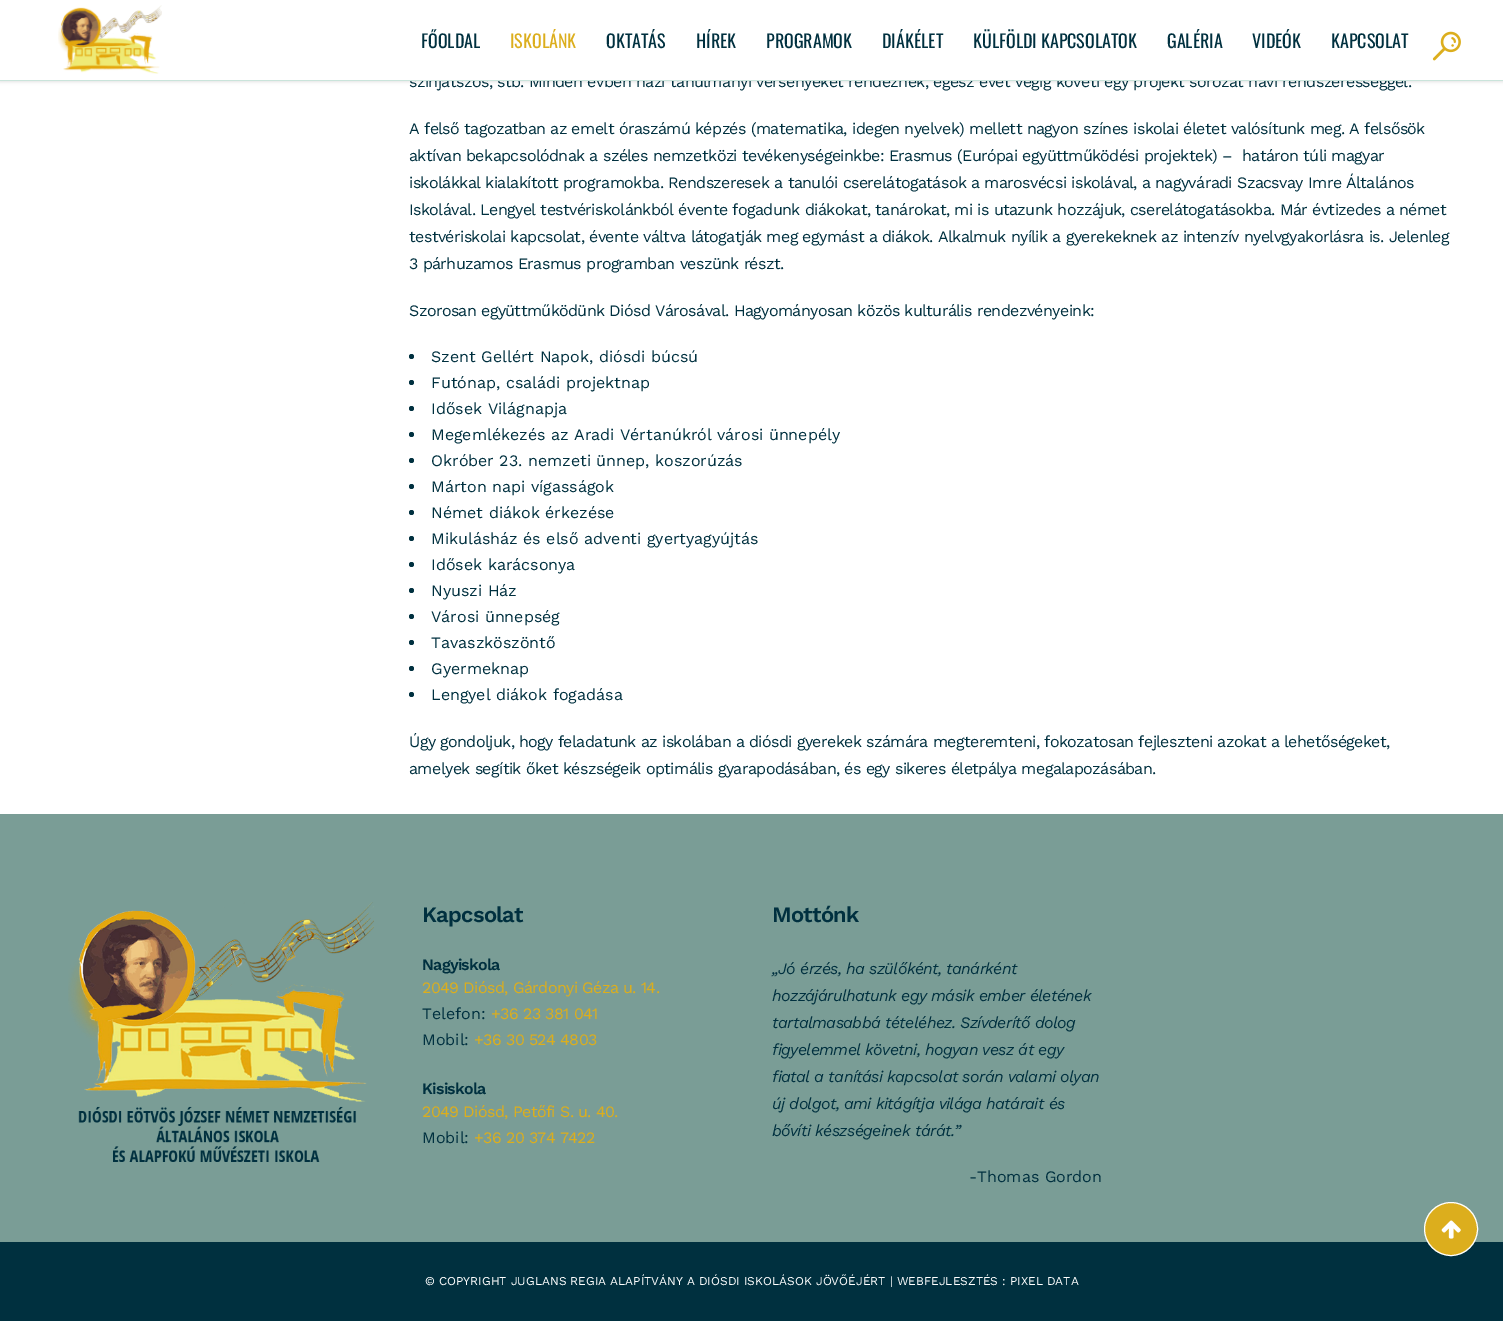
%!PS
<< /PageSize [1503 1321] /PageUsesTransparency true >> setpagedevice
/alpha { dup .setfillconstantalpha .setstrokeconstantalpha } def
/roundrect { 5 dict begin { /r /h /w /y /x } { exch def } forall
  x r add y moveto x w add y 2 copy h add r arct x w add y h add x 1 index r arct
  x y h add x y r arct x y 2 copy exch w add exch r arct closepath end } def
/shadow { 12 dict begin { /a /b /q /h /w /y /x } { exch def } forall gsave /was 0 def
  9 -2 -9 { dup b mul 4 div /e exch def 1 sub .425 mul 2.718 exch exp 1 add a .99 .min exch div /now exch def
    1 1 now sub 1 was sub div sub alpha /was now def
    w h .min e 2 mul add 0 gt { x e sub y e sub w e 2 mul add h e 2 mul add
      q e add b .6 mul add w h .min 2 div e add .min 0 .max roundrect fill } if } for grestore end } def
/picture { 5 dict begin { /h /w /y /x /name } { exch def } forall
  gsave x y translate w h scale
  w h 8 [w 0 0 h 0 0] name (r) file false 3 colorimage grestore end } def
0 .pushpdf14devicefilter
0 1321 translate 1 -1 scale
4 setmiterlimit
1 setgray
0 0 1503 1321 rectfill
0 setgray
0 1 1503 81 0 1.5 0.11 shadow
/WorkSans-Regular [16 0 0 -16 0 0] selectfont
0 0.188 0.247 setrgbcolor
409 87 moveto -0.6 0 (színjátszós, stb. Minden évben házi tanulmányi versenyeket rendeznek, egész évet végig követi egy projekt sorozat havi rendszerességgel.) ashow
1 setgray
0 0 1503 80 rectfill
0.792 0.894 0.859 setrgbcolor
0 80 1503 1 rectfill
(img1.rgb) 58 5 104 69 picture
/Oswald-Regular [18 0 0 -18 0 0] selectfont
0 0.188 0.247 setrgbcolor
421 48 moveto (FŐOLDAL) show
0.863 0.682 0.114 setrgbcolor
510 48 moveto (ISKOLÁNK) show
0 0.188 0.247 setrgbcolor
606 48 moveto (OKTATÁS) show
696 48 moveto (HÍREK) show
766 48 moveto (PROGRAMOK) show
882 48 moveto (DIÁKÉLET) show
973 48 moveto (KÜLFÖLDI KAPCSOLATOK) show
1167 48 moveto (GALÉRIA) show
1252 48 moveto (VIDEÓK) show
1331 48 moveto (KAPCSOLAT) show
(img2.rgb) 1432 31 29 30 picture
/WorkSans-Regular [16 0 0 -16 0 0] selectfont
409 134 moveto -0.6 0 (A felső tagozatban az emelt óraszámú képzés \(matematika, idegen nyelvek\) mellett nagyon színes iskolai életet valósítunk meg. A felsősök) ashow
409 161 moveto -0.6 0 (aktívan bekapcsolódnak a széles nemzetközi tevékenységeinkbe: Erasmus \(Európai együttműködési projektek\) –  határon túli magyar) ashow
409 188 moveto -0.6 0 (iskolákkal kialakított programokba. Rendszeresek a tanulói cserelátogatások a marosvécsi iskolával, a nagyváradi Szacsvay Imre Általános) ashow
409 215 moveto -0.6 0 (Iskolával. Lengyel testvériskolánkból évente fogadunk diákokat, tanárokat, mi is utazunk hozzájuk, cserelátogatásokba. Már évtizedes a német) ashow
409 242 moveto -0.6 0 (testvériskolai kapcsolat, évente váltva látogatják meg egymást a diákok. Alkalmuk nyílik a gyerekeknek az intenzív nyelvgyakorlásra is. Jelenleg) ashow
409 269 moveto -0.6 0 (3 párhuzamos Erasmus programban veszünk részt.) ashow
409 316 moveto -0.6 0 (Szorosan együttműködünk Diósd Városával. Hagyományosan közös kulturális rendezvényeink:) ashow
newpath 411.5 356.5 2.5 0 360 arc closepath fill
431 362 moveto (Szent Gellért Napok, diósdi búcsú) show
newpath 411.5 382.5 2.5 0 360 arc closepath fill
431 388 moveto (Futónap, családi projektnap) show
newpath 411.5 408.5 2.5 0 360 arc closepath fill
431 414 moveto (Idősek Világnapja) show
newpath 411.5 434.5 2.5 0 360 arc closepath fill
431 440 moveto (Megemlékezés az Aradi Vértanúkról városi ünnepély) show
newpath 411.5 460.5 2.5 0 360 arc closepath fill
431 466 moveto (Okróber 23. nemzeti ünnep, koszorúzás) show
newpath 411.5 486.5 2.5 0 360 arc closepath fill
431 492 moveto (Márton napi vígasságok) show
newpath 411.5 512.5 2.5 0 360 arc closepath fill
431 518 moveto (Német diákok érkezése) show
newpath 411.5 538.5 2.5 0 360 arc closepath fill
431 544 moveto (Mikulásház és első adventi gyertyagyújtás) show
newpath 411.5 564.5 2.5 0 360 arc closepath fill
431 570 moveto (Idősek karácsonya) show
newpath 411.5 590.5 2.5 0 360 arc closepath fill
431 596 moveto (Nyuszi Ház) show
newpath 411.5 616.5 2.5 0 360 arc closepath fill
431 622 moveto (Városi ünnepség) show
newpath 411.5 642.5 2.5 0 360 arc closepath fill
431 648 moveto (Tavaszköszöntő) show
newpath 411.5 668.5 2.5 0 360 arc closepath fill
431 674 moveto (Gyermeknap) show
newpath 411.5 694.5 2.5 0 360 arc closepath fill
431 700 moveto (Lengyel diákok fogadása) show
409 747 moveto -0.6 0 (Úgy gondoljuk, hogy feladatunk az iskolában a diósdi gyerekek számára megteremteni, fokozatosan fejleszteni azokat a lehetőségeket,) ashow
409 774 moveto -0.6 0 (amelyek segítik őket készségeik optimális gyarapodásában, és egy sikeres életpálya megalapozásában.) ashow
0.478 0.616 0.588 setrgbcolor
0 814 1503 428 rectfill
(img3.rgb) 68 902 306 260 picture
/WorkSans-SemiBold [22 0 0 -22 0 0] selectfont
0 0.188 0.247 setrgbcolor
422 922 moveto -0.75 0 (Kapcsolat) ashow
/WorkSans-SemiBold [16 0 0 -16 0 0] selectfont
422 970 moveto -0.75 0 (Nagyiskola) ashow
/WorkSans-Regular [16 0 0 -16 0 0] selectfont
0.863 0.682 0.114 setrgbcolor
422 993 moveto -0.6 0 (2049 Diósd, Gárdonyi Géza u. 14.) ashow
0 0.188 0.247 setrgbcolor
422 1019 moveto (Telefon:) show
0.863 0.682 0.114 setrgbcolor
491 1019 moveto -0.6 0 (+36 23 381 041) ashow
0 0.188 0.247 setrgbcolor
422 1045 moveto (Mobil:) show
0.863 0.682 0.114 setrgbcolor
474 1045 moveto -0.6 0 (+36 30 524 4803) ashow
/WorkSans-SemiBold [16 0 0 -16 0 0] selectfont
0 0.188 0.247 setrgbcolor
422 1094 moveto -0.75 0 (Kisiskola) ashow
/WorkSans-Regular [16 0 0 -16 0 0] selectfont
0.863 0.682 0.114 setrgbcolor
422 1117 moveto -0.6 0 (2049 Diósd, Petőfi S. u. 40.) ashow
0 0.188 0.247 setrgbcolor
422 1143 moveto (Mobil:) show
0.863 0.682 0.114 setrgbcolor
474 1143 moveto -0.6 0 (+36 20 374 7422) ashow
/WorkSans-SemiBold [22 0 0 -22 0 0] selectfont
0 0.188 0.247 setrgbcolor
772 922 moveto -0.75 0 (Mottónk) ashow
/WorkSans-Italic [16 0 0 -16 0 0] selectfont
772 974 moveto -0.6 0 („Jó érzés, ha szülőként, tanárként) ashow
772 1001 moveto -0.6 0 (hozzájárulhatunk egy másik ember életének) ashow
772 1028 moveto -0.6 0 (tartalmasabbá tételéhez. Szívderítő dolog) ashow
772 1055 moveto -0.6 0 (figyelemmel követni, hogyan vesz át egy) ashow
772 1082 moveto -0.6 0 (fiatal a tanítási kapcsolat során valami olyan) ashow
772 1109 moveto -0.6 0 (új dolgot, ami kitágítja világa határait és) ashow
772 1136 moveto -0.6 0 (bővíti készségeinek tárát.”) ashow
/WorkSans-Regular [16 0 0 -16 0 0] selectfont
969 1182 moveto (-Thomas Gordon) show
0 1242 1503 79 rectfill
/WorkSans-Regular [12 0 0 -12 0 0] selectfont
1 setgray
425 1285 moveto (© COPYRIGHT JUGLANS REGIA ALAPÍTVÁNY A DIÓSDI ISKOLÁSOK JÖVŐÉJÉRT | WEBFEJLESZTÉS : PIXEL DATA) show
0.863 0.682 0.114 setrgbcolor
newpath 1451 1229 26.5 0 360 arc closepath gsave fill grestore
1 setgray
stroke
(img4.rgb) 1441 1220 20 19 picture
.poppdf14devicefilter showpage
